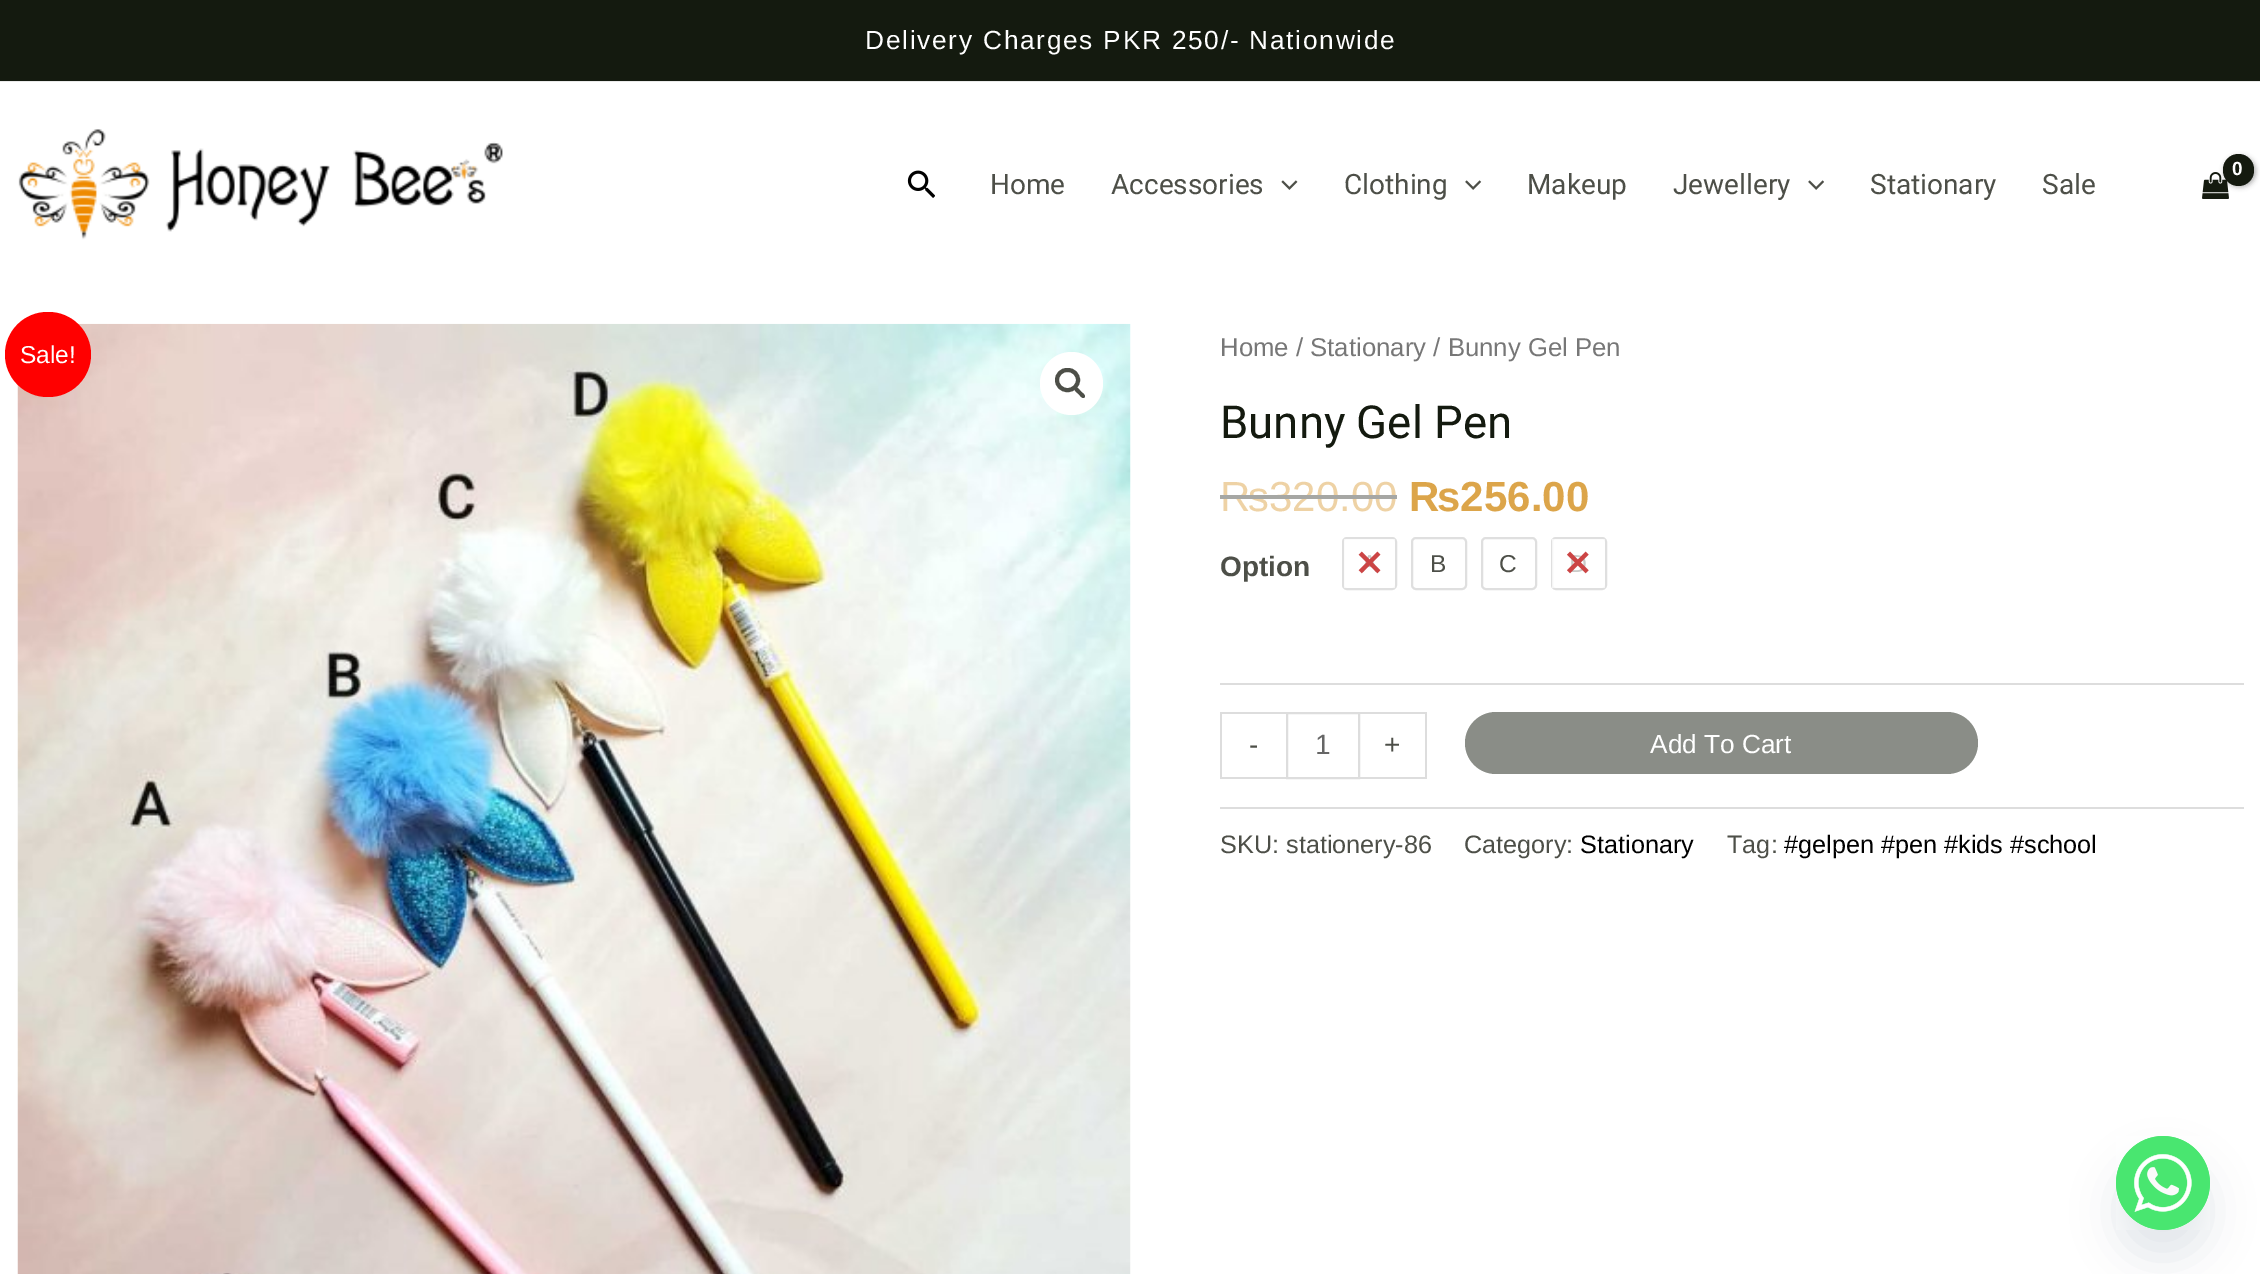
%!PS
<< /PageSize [2260 1274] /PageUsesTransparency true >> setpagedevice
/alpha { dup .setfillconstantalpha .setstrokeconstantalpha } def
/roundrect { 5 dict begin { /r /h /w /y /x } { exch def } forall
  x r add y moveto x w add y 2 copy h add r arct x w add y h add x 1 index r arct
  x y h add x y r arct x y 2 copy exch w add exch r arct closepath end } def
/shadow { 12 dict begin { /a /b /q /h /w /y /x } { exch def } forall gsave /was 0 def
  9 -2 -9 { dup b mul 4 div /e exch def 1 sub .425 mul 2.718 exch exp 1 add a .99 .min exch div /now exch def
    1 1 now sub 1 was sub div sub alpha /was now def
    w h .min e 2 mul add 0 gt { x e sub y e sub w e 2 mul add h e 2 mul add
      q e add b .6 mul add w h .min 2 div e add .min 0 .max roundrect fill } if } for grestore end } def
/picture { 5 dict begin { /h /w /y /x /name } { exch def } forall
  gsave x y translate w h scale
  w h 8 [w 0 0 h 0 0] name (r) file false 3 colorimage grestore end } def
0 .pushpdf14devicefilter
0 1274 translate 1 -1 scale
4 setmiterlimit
1 setgray
0 0 2260 1274 rectfill
0.078 0.102 0.059 setrgbcolor
0 0 2260 81 rectfill
0.918 setgray
0 81 2260 1 rectfill
/LiberationSans-Regular [26.25 0 0 -26.25 0 0] selectfont
1 setgray
865 49 moveto 1.75 0 (Delivery Charges PKR 250/- Nationwide) ashow
(img1.rgb) 18 129 485 111 picture
(img2.rgb) 2202 172 27 27 picture
0 setgray
2224 156 32 31 15.5 2.5 0.3 shadow
0.078 0.102 0.059 setrgbcolor
2223 154 31 32 15.5 roundrect fill
/LiberationSans-Bold [19 0 0 -19 0 0] selectfont
1 setgray
2232 175 moveto -1 0 (0) ashow
(img3.rgb) 907 170 28 28 picture
/Roboto-Regular [28 0 0 -28 0 0] selectfont
0.302 0.31 0.282 setrgbcolor
990 194 moveto (Home) show
1111 194 moveto (Accessories) show
(img4.rgb) 1281 180 17 10 picture
1344 194 moveto (Clothing) show
(img5.rgb) 1465 180 17 10 picture
1527 194 moveto (Makeup) show
1673 194 moveto (Jewellery) show
(img6.rgb) 1808 180 16 10 picture
1870 194 moveto (Stationary) show
2042 194 moveto (Sale) show
(img7.rgb) 17 323 1114 951 picture
1 setgray
newpath 1071.5 383.5 31.5 0 360 arc closepath fill
0.302 0.31 0.282 setrgbcolor
4 setlinewidth
1057 370 21 20 10 roundrect stroke
newpath 1075 388 moveto 1077 386 1080 390.5 1081 391.5 curveto 1082 392.5 1086.5 395.5 1084.5 397.5 curveto 1082.5 399.5 1079.5 395 1078.5 394 curveto 1077.5 393 1073 390 1075 388 curveto closepath fill
/LiberationSans-Regular [25.75 0 0 -25.75 0 0] selectfont
0.467 setgray
1220 356 moveto (Home / Stationary / Bunny Gel Pen) show
/Roboto-Regular [45.5 0 0 -45.5 0 0] selectfont
0.078 0.102 0.059 setrgbcolor
1220 438 moveto (Bunny Gel Pen) show
/LiberationSans-Regular [42 0 0 -42 0 0] selectfont
0.933 0.824 0.647 setrgbcolor
1220 511 moveto (₨320.00) show
0.651 0.655 0.643 setrgbcolor
1220 495 177 4 rectfill
/LiberationSans-Bold [42 0 0 -42 0 0] selectfont
0.863 0.647 0.29 setrgbcolor
1409 511 moveto (₨256.00) show
0.867 setgray
1220 683 1024 2 rectfill
/LiberationSans-Bold [28 0 0 -28 0 0] selectfont
0.302 0.31 0.282 setrgbcolor
1220 576 moveto (Option) show
0.875 setgray
2 setlinewidth
1343 538 53 51 4 roundrect stroke
0.7 alpha
1 setgray
1344 539 51 49 rectfill
1 alpha
(img8.rgb) 1358 551 23 23 picture
0.875 setgray
1412 538 54 51 4 roundrect stroke
/LiberationSans-Regular [24.5 0 0 -24.5 0 0] selectfont
0.302 0.31 0.282 setrgbcolor
1430 572 moveto (B) show
0.875 setgray
1482 538 54 51 4 roundrect stroke
0.302 0.31 0.282 setrgbcolor
1499 572 moveto (C) show
0.875 setgray
1552 538 54 51 4 roundrect stroke
0.7 alpha
1 setgray
1552 539 53 49 rectfill
1 alpha
(img9.rgb) 1567 551 22 23 picture
0.867 setgray
1220 712 66 2 rectfill
1220 777 66 2 rectfill
1220 712 2 67 rectfill
/LiberationSans-Regular [28 0 0 -28 0 0] selectfont
0.302 0.31 0.282 setrgbcolor
1249 754 moveto (-) show
0.867 setgray
1287 713 72 65 rectstroke
0.4 setgray
1315 754 moveto (1) show
0.867 setgray
1360 712 66 2 rectfill
1425 712 2 67 rectfill
1360 777 66 2 rectfill
0.302 0.31 0.282 setrgbcolor
1384 754 moveto (+) show
0.541 0.553 0.529 setrgbcolor
1465 712 513 62 31 roundrect fill
/LiberationSans-Regular [26.25 0 0 -26.25 0 0] selectfont
1 setgray
1650 753 moveto (Add To Cart) show
0.867 setgray
1220 807 1024 2 rectfill
/LiberationSans-Regular [25.25 0 0 -25.25 0 0] selectfont
0.302 0.31 0.282 setrgbcolor
1220 853 moveto (SKU: stationery-86) show
1464 853 moveto (Category:) show
0 setgray
1580 853 moveto (Stationary) show
0.302 0.31 0.282 setrgbcolor
1727 853 moveto (Tag:) show
0 setgray
1784 853 moveto (#gelpen #pen #kids #school) show
1 0 0 setrgbcolor
5 312 86 85 42.5 roundrect fill
/LiberationSans-Regular [24.5 0 0 -24.5 0 0] selectfont
1 setgray
20 363 moveto (Sale!) show
0.286 0.408 0.494 setrgbcolor
2116 1164 94 94 47 21 0.16 shadow
(img10.rgb) 2116 1136 94 94 picture
.poppdf14devicefilter showpage
